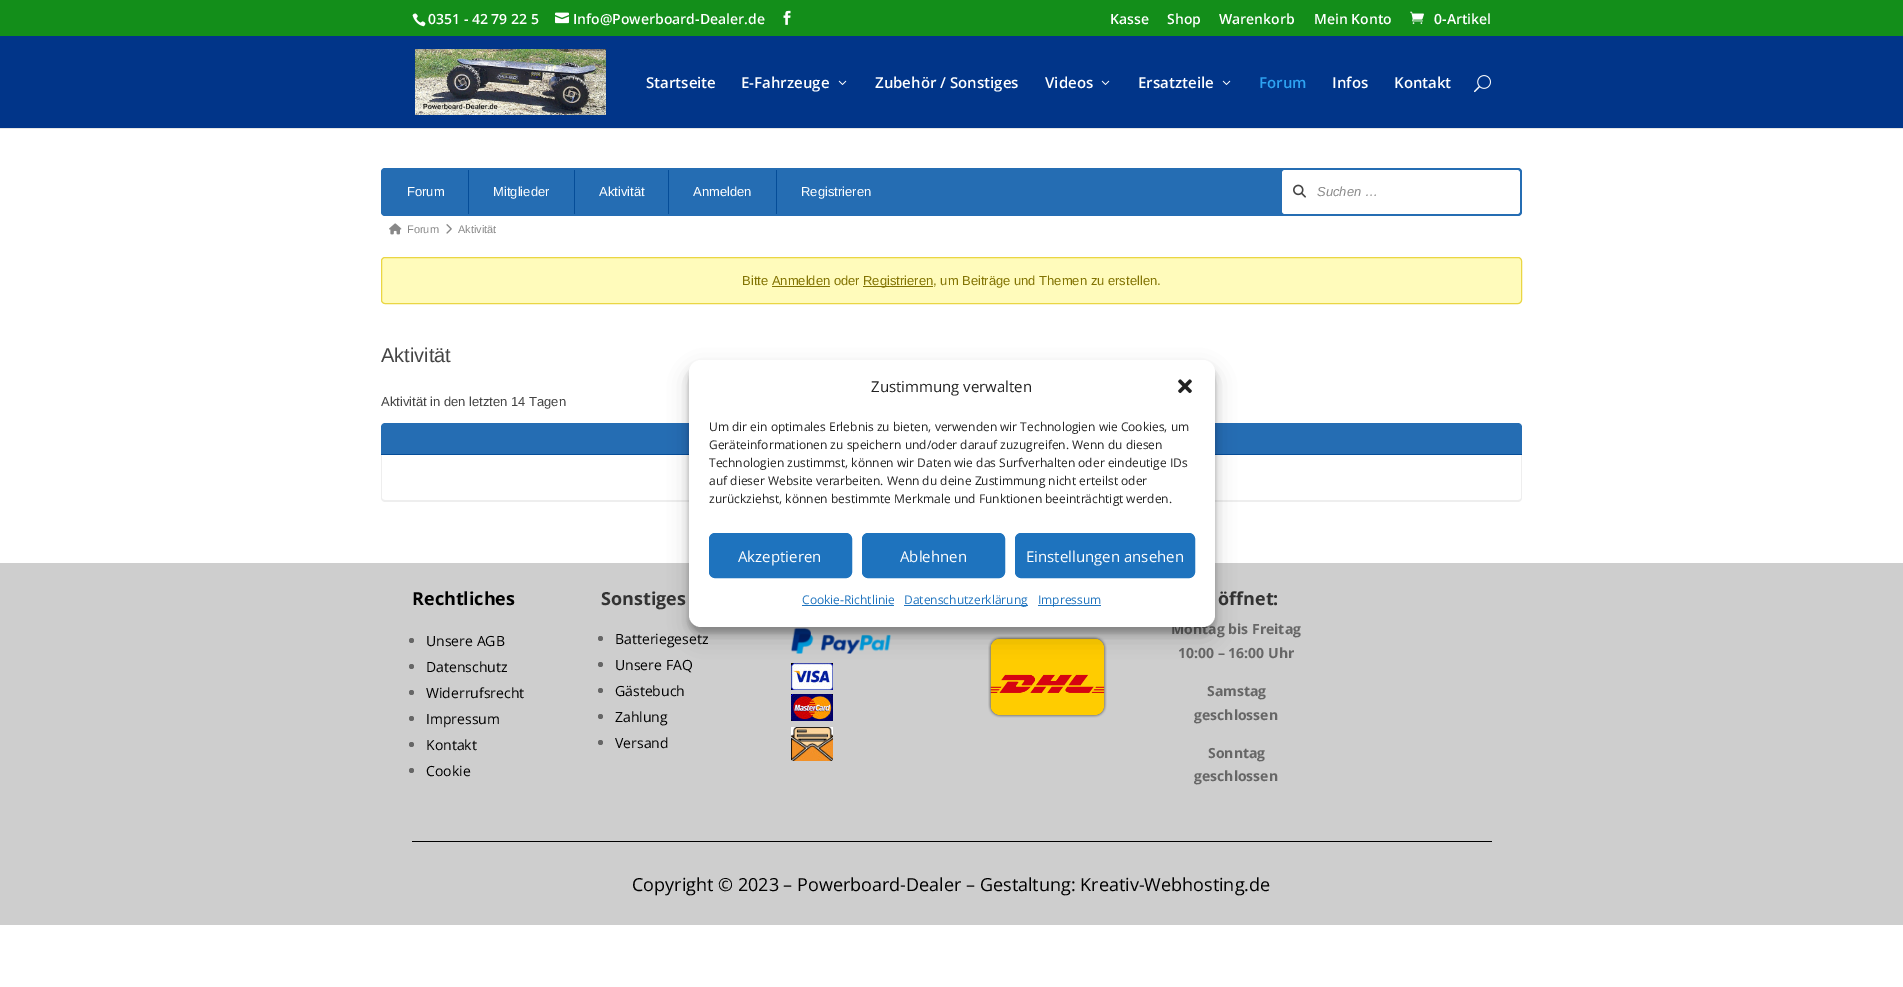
%!PS
<< /PageSize [1903 987] /PageUsesTransparency true >> setpagedevice
/alpha { dup .setfillconstantalpha .setstrokeconstantalpha } def
/roundrect { 5 dict begin { /r /h /w /y /x } { exch def } forall
  x r add y moveto x w add y 2 copy h add r arct x w add y h add x 1 index r arct
  x y h add x y r arct x y 2 copy exch w add exch r arct closepath end } def
/shadow { 12 dict begin { /a /b /q /h /w /y /x } { exch def } forall gsave /was 0 def
  9 -2 -9 { dup b mul 4 div /e exch def 1 sub .425 mul 2.718 exch exp 1 add a .99 .min exch div /now exch def
    1 1 now sub 1 was sub div sub alpha /was now def
    w h .min e 2 mul add 0 gt { x e sub y e sub w e 2 mul add h e 2 mul add
      q e add b .6 mul add w h .min 2 div e add .min 0 .max roundrect fill } if } for grestore end } def
/picture { 5 dict begin { /h /w /y /x /name } { exch def } forall
  gsave x y translate w h scale
  w h 8 [w 0 0 h 0 0] name (r) file false 3 colorimage grestore end } def
0 .pushpdf14devicefilter
0 987 translate 1 -1 scale
4 setmiterlimit
1 setgray
0 0 1903 987 rectfill
0.075 0.557 0.102 setrgbcolor
0 0 1903 36 rectfill
(img1.rgb) 412 13 14 14 picture
/OpenSans-SemiBold [14 0 0 -14 0 0] selectfont
1 setgray
428 24 moveto (0351 - 42 79 22 5) show
(img2.rgb) 555 12 14 12 picture
573 24 moveto (Info@Powerboard-Dealer.de) show
(img3.rgb) 783 10 8 15 picture
1110 24 moveto (Kasse) show
1167 24 moveto (Shop) show
1219 24 moveto (Warenkorb) show
1314 24 moveto (Mein Konto) show
(img4.rgb) 1410 11 14 13 picture
1434 24 moveto (0-Artikel) show
0.902 setgray
0 128 1903 1 rectfill
0.004 0.208 0.537 setrgbcolor
0 36 1903 92 rectfill
(img5.rgb) 415 49 191 66 picture
/OpenSans-SemiBold [15 0 0 -15 0 0] selectfont
1 setgray
646 88 moveto (Startseite) show
741 88 moveto (E-Fahrzeuge) show
(img6.rgb) 838 80 9 5 picture
875 88 moveto (Zubehör / Sonstiges) show
1045 88 moveto (Videos) show
(img6.rgb) 1101 80 9 5 picture
1138 88 moveto (Ersatzteile) show
(img6.rgb) 1222 80 9 5 picture
0.18 0.639 0.949 setrgbcolor
1259 88 moveto (Forum) show
1 setgray
1332 88 moveto (Infos) show
1394 88 moveto (Kontakt) show
(img7.rgb) 1474 75 17 18 picture
0.145 0.427 0.702 setrgbcolor
381 168 1141 48 4 roundrect fill
/LiberationSans-Regular [13 0 0 -13 0 0] selectfont
1 setgray
407 196 moveto (Forum) show
0.02 0.302 0.596 setrgbcolor
468 170 1 44 rectfill
1 setgray
493 196 moveto (Mitglieder) show
0.02 0.302 0.596 setrgbcolor
574 170 1 44 rectfill
1 setgray
599 196 moveto (Aktivität) show
0.02 0.302 0.596 setrgbcolor
668 170 1 44 rectfill
1 setgray
693 196 moveto (Anmelden) show
0.02 0.302 0.596 setrgbcolor
776 170 1 44 rectfill
1 setgray
801 196 moveto (Registrieren) show
1282 170 238 44 3 roundrect fill
(img8.rgb) 1293 184 13 14 picture
/LiberationSans-Italic [13 0 0 -13 0 0] selectfont
0.533 setgray
1317 196 moveto (Suchen …) show
(img9.rgb) 389 223 13 12 picture
/LiberationSans-Regular [11 0 0 -11 0 0] selectfont
407 233 moveto (Forum) show
(img10.rgb) 446 224 6 10 picture
458 233 moveto (Aktivität) show
1 0.984 0.733 setrgbcolor
381.5 257.5 1140 46 3.5 roundrect gsave fill grestore
0.918 0.839 0.263 setrgbcolor
stroke
/LiberationSans-Regular [13 0 0 -13 0 0] selectfont
0.51 0.451 0.008 setrgbcolor
742 285 moveto (Bitte Anmelden oder) show
863 286 70 1 rectfill
863 285 moveto (Registrieren, um Beiträge und Themen zu erstellen.) show
772 286 58 1 rectfill
/LiberationSans-Regular [20 0 0 -20 0 0] selectfont
0.267 setgray
381 362 moveto (Aktivität) show
/LiberationSans-Regular [13 0 0 -13 0 0] selectfont
381 406 moveto (Aktivität in den letzten 14 Tagen) show
0.145 0.427 0.702 setrgbcolor
newpath 385 423 moveto 1518 423 lineto 1520 423 1522 425 1522 427 curveto 1522 455 lineto 381 455 lineto 381 427 lineto 381 425 383 423 385 423 curveto closepath fill
0.02 0.302 0.596 setrgbcolor
381 454 1141 1 rectfill
0.933 setgray
newpath 381 455 moveto 1522 455 lineto 1522 498 lineto 1522 500 1520 502 1518 502 curveto 385 502 lineto 383 502 381 500 381 498 curveto closepath 382 455 moveto 1521 455 lineto 1521 498 lineto 1521 499 1520 500 1518 500 curveto 385 500 lineto 383 500 382 499 382 498 curveto closepath eofill
0.808 setgray
0 563 1903 362 rectfill
/OpenSans-Bold [18 0 0 -18 0 0] selectfont
0 setgray
412 605 moveto (Rechtliches) show
0.4 setgray
newpath 411.5 640.5 2.5 0 360 arc closepath fill
/OpenSans-Regular [14 0 0 -14 0 0] selectfont
0 setgray
426 646 moveto (Unsere AGB) show
0.4 setgray
newpath 411.5 666.5 2.5 0 360 arc closepath fill
0 setgray
426 672 moveto (Datenschutz) show
0.4 setgray
newpath 411.5 692.5 2.5 0 360 arc closepath fill
0 setgray
426 698 moveto (Widerrufsrecht) show
0.4 setgray
newpath 411.5 718.5 2.5 0 360 arc closepath fill
0 setgray
426 724 moveto (Impressum) show
0.4 setgray
newpath 411.5 744.5 2.5 0 360 arc closepath fill
0 setgray
426 750 moveto (Kontakt) show
0.4 setgray
newpath 411.5 770.5 2.5 0 360 arc closepath fill
0 setgray
426 776 moveto (Cookie) show
/OpenSans-Bold [18 0 0 -18 0 0] selectfont
0.2 setgray
601 605 moveto (Sonstiges) show
0.4 setgray
newpath 600.5 638.5 2.5 0 360 arc closepath fill
/OpenSans-Regular [14 0 0 -14 0 0] selectfont
0 setgray
615 644 moveto (Batteriegesetz) show
0.4 setgray
newpath 600.5 664.5 2.5 0 360 arc closepath fill
0 setgray
615 670 moveto (Unsere FAQ) show
0.4 setgray
newpath 600.5 690.5 2.5 0 360 arc closepath fill
0 setgray
615 696 moveto (Gästebuch) show
0.4 setgray
newpath 600.5 716.5 2.5 0 360 arc closepath fill
0 setgray
615 722 moveto (Zahlung) show
0.4 setgray
newpath 600.5 742.5 2.5 0 360 arc closepath fill
0 setgray
615 748 moveto (Versand) show
(img11.rgb) 791 628 100 26 picture
(img12.rgb) 791 663 42 27 picture
(img13.rgb) 791 694 42 27 picture
(img14.rgb) 791 727 42 34 picture
(img15.rgb) 988 636 119 82 picture
/OpenSans-Bold [18 0 0 -18 0 0] selectfont
0.2 setgray
1218 605 moveto (öffnet:) show
/OpenSans-Bold [14 0 0 -14 0 0] selectfont
0.4 setgray
1171 634 moveto (Montag bis Freitag) show
1178 658 moveto (10:00 – 16:00 Uhr) show
1207 696 moveto (Samstag) show
1194 720 moveto (geschlossen) show
1208 758 moveto (Sonntag) show
1194 781 moveto (geschlossen) show
0 setgray
412 841 1080 1 rectfill
/OpenSans-Regular [18 0 0 -18 0 0] selectfont
632 891 moveto (Copyright © 2023 – Powerboard-Dealer – Gestaltung: Kreativ-Webhosting.de) show
689 366 526 267 12 3 0.23 shadow
689 370 526 267 12 10 0.19 shadow
1 setgray
689 360 526 267 12 roundrect fill
/OpenSans-Regular [15 0 0 -15 0 0] selectfont
0.133 setgray
871 392 moveto (Zustimmung verwalten) show
(img16.rgb) 1178 379 14 15 picture
/OpenSans-Regular [12 0 0 -12 0 0] selectfont
709 431 moveto (Um dir ein optimales Erlebnis zu bieten, verwenden wir Technologien wie Cookies, um) show
709 449 moveto (Geräteinformationen zu speichern und/oder darauf zuzugreifen. Wenn du diesen) show
709 467 moveto (Technologien zustimmst, können wir Daten wie das Surfverhalten oder eindeutige IDs) show
709 485 moveto (auf dieser Website verarbeiten. Wenn du deine Zustimmung nicht erteilst oder) show
709 503 moveto (zurückziehst, können bestimmte Merkmale und Funktionen beeinträchtigt werden.) show
0.118 0.451 0.745 setrgbcolor
709.5 533.5 142 44 5.5 roundrect gsave fill grestore
stroke
/OpenSans-Regular [15 0 0 -15 0 0] selectfont
1 setgray
738 562 moveto (Akzeptieren) show
0.118 0.451 0.745 setrgbcolor
862.5 533.5 142 44 5.5 roundrect gsave fill grestore
stroke
1 setgray
900 562 moveto (Ablehnen) show
0.118 0.451 0.745 setrgbcolor
1015.5 533.5 179 44 5.5 roundrect gsave fill grestore
stroke
1 setgray
1026 562 moveto (Einstellungen ansehen) show
/OpenSans-Regular [12 0 0 -12 0 0] selectfont
0.118 0.451 0.745 setrgbcolor
802 604 moveto (Cookie-Richtlinie) show
802 605 92 1 rectfill
904 605 124 1 rectfill
904 604 moveto (Datenschutzerklärung) show
1038 605 63 1 rectfill
1038 604 moveto (Impressum) show
.poppdf14devicefilter showpage
